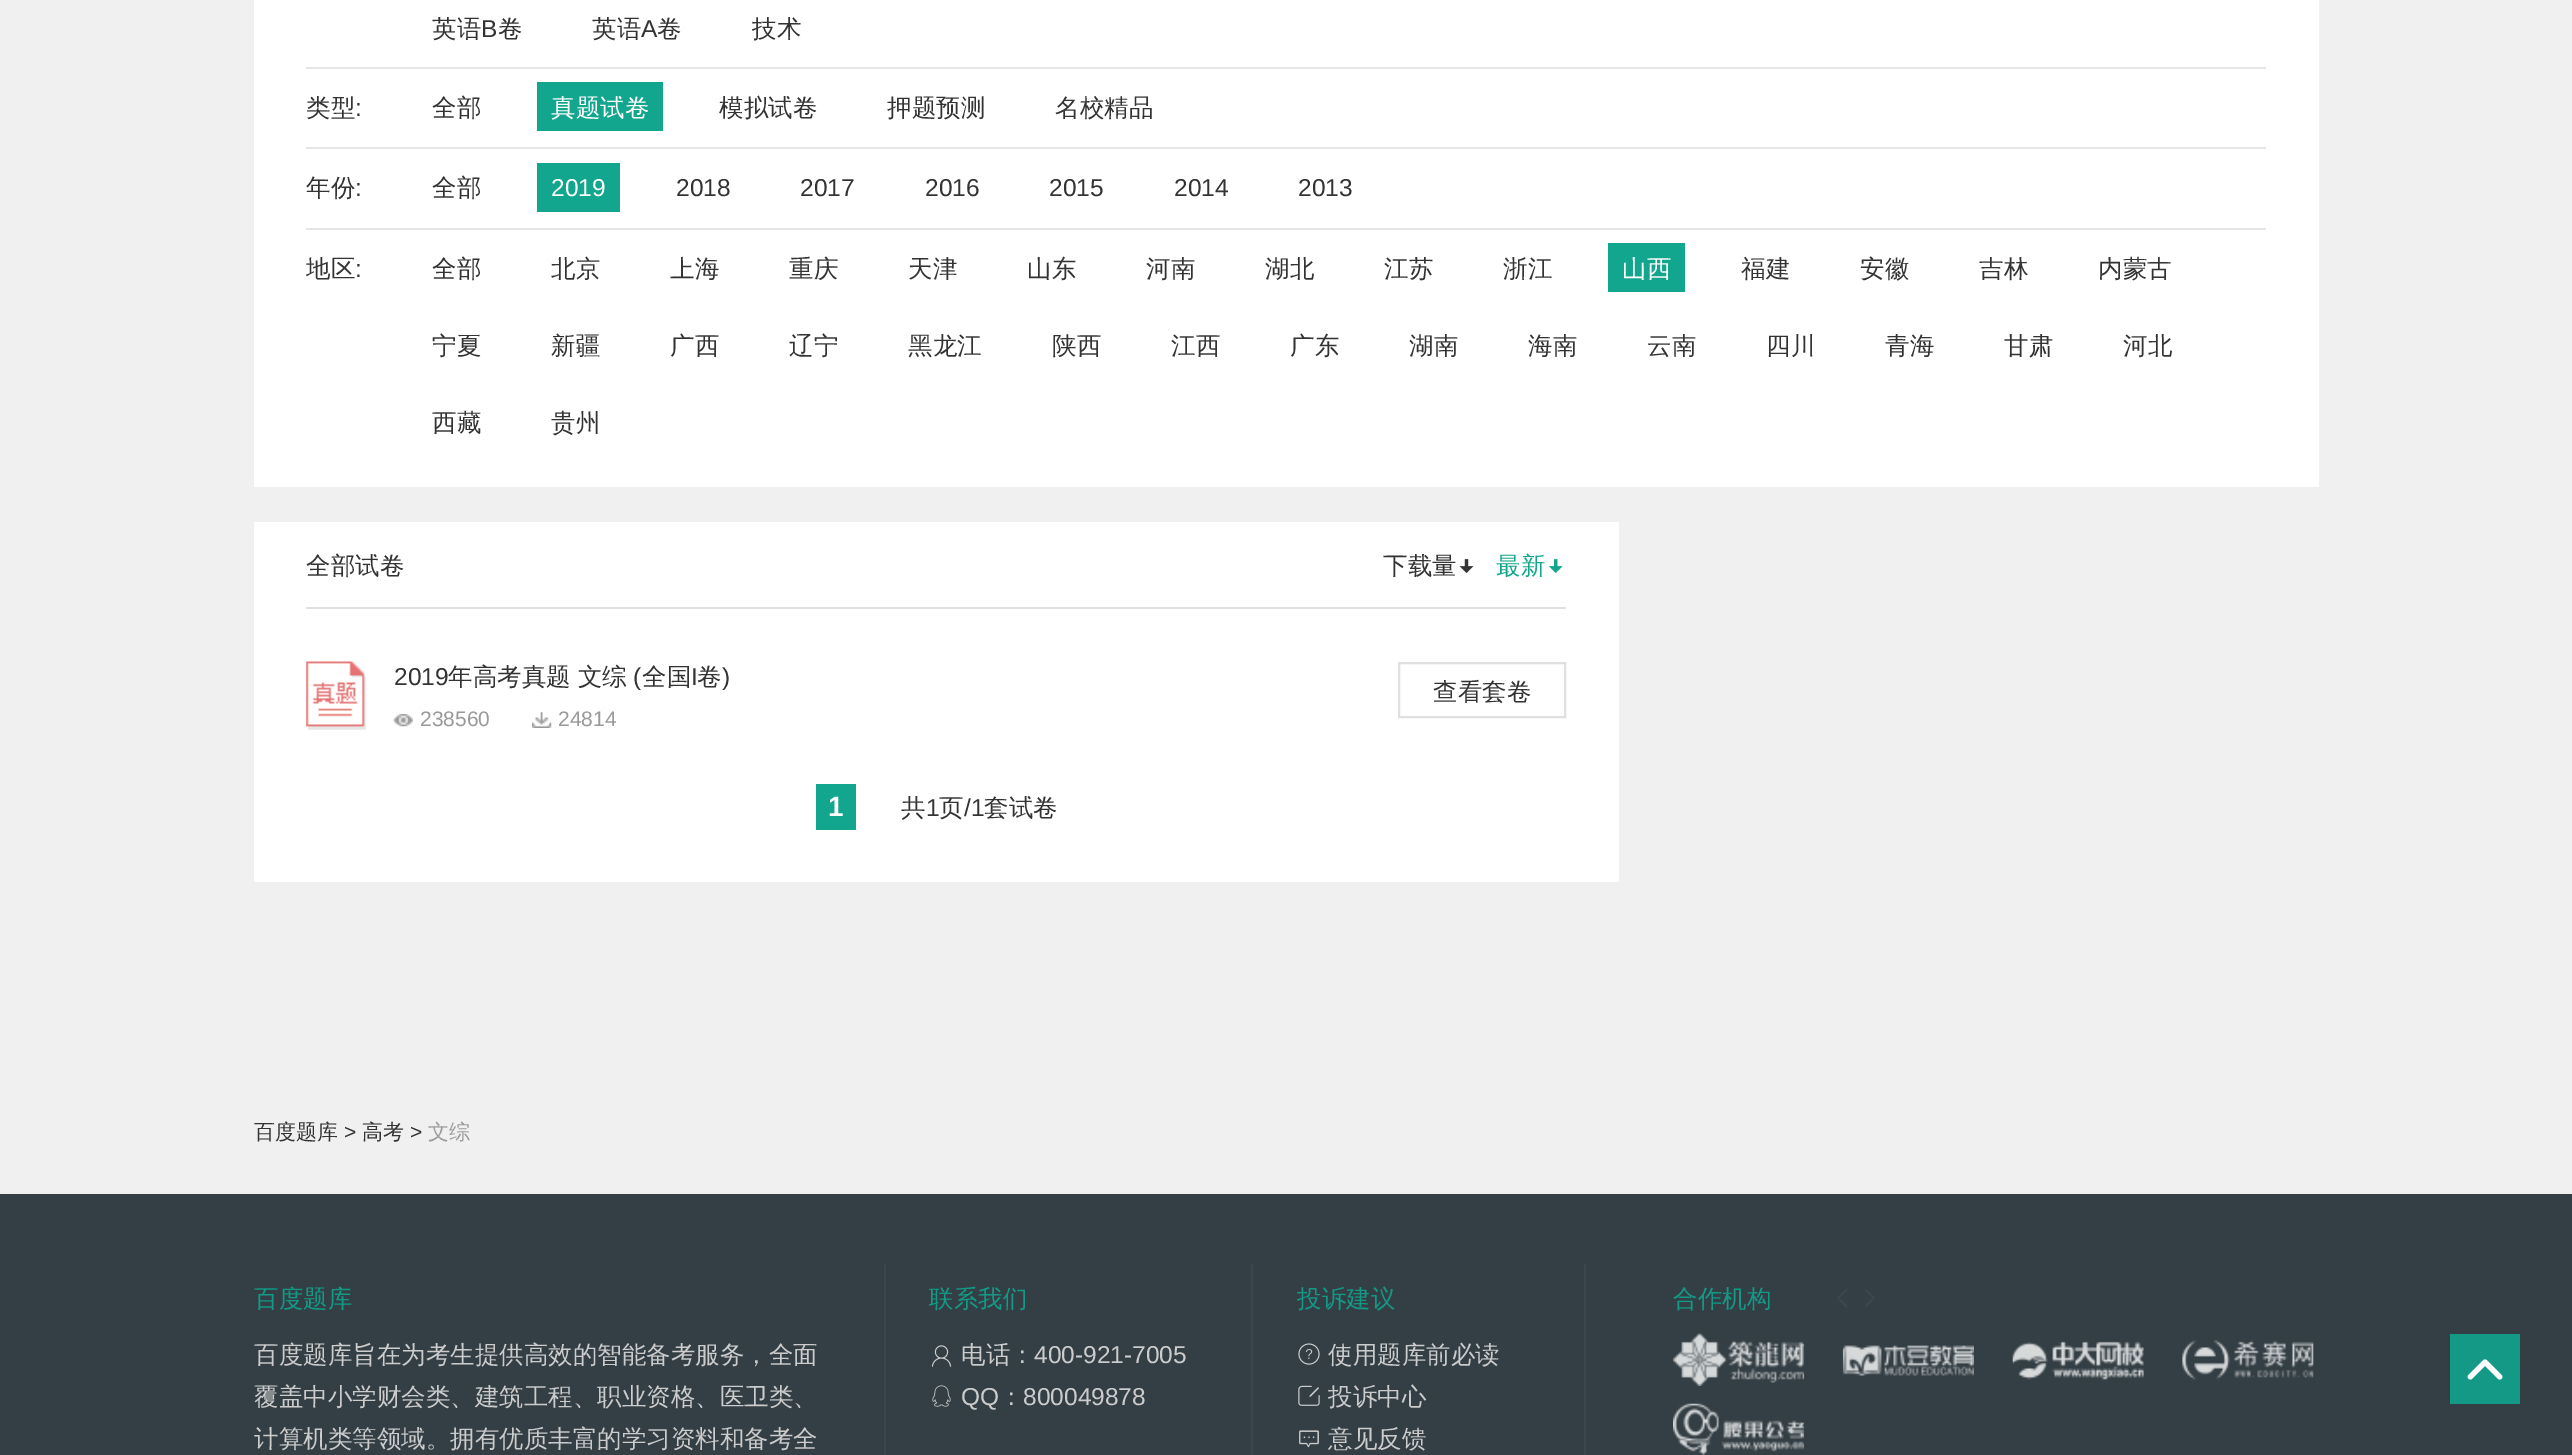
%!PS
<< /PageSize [2572 1455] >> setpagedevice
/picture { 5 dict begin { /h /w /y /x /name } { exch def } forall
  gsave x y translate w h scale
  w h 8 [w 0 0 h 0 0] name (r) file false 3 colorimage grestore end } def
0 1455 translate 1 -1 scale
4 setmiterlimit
0.941 setgray
0 0 2572 1455 rectfill
1 setgray
254 0 2065 487 rectfill
0.898 setgray
306 67 1960 2 rectfill
/WenQuanYiZenHei-Medium [24.5 0 0 -24.5 0 0] selectfont
0.2 setgray
432 37 moveto (英语) show
/LiberationSans-Regular [24.5 0 0 -24.5 0 0] selectfont
481 37 moveto (B) show
/WenQuanYiZenHei-Medium [24.5 0 0 -24.5 0 0] selectfont
498 37 moveto (卷) show
592 37 moveto (英语) show
/LiberationSans-Regular [24.5 0 0 -24.5 0 0] selectfont
641 37 moveto (A) show
/WenQuanYiZenHei-Medium [24.5 0 0 -24.5 0 0] selectfont
657 37 moveto (卷) show
752 37 moveto (技术) show
0.898 setgray
306 147 1960 2 rectfill
0.2 setgray
306 116 moveto (类型) show
/LiberationSans-Regular [24.5 0 0 -24.5 0 0] selectfont
355 116 moveto (:) show
/WenQuanYiZenHei-Medium [24.5 0 0 -24.5 0 0] selectfont
432 116 moveto (全部) show
0.067 0.651 0.553 setrgbcolor
537 82 126 49 rectfill
1 setgray
551 116 moveto (真题试卷) show
0.2 setgray
719 116 moveto (模拟试卷) show
887 116 moveto (押题预测) show
1055 116 moveto (名校精品) show
0.898 setgray
306 228 1960 2 rectfill
0.2 setgray
306 196 moveto (年份) show
/LiberationSans-Regular [24.5 0 0 -24.5 0 0] selectfont
355 196 moveto (:) show
/WenQuanYiZenHei-Medium [24.5 0 0 -24.5 0 0] selectfont
432 196 moveto (全部) show
0.067 0.651 0.553 setrgbcolor
537 163 83 49 rectfill
/LiberationSans-Regular [24.5 0 0 -24.5 0 0] selectfont
1 setgray
551 196 moveto (2019) show
0.2 setgray
676 196 moveto (2018) show
800 196 moveto (2017) show
925 196 moveto (2016) show
1049 196 moveto (2015) show
1174 196 moveto (2014) show
1298 196 moveto (2013) show
/WenQuanYiZenHei-Medium [24.5 0 0 -24.5 0 0] selectfont
306 277 moveto (地区) show
/LiberationSans-Regular [24.5 0 0 -24.5 0 0] selectfont
355 277 moveto (:) show
/WenQuanYiZenHei-Medium [24.5 0 0 -24.5 0 0] selectfont
432 277 moveto (全部) show
551 277 moveto (北京) show
670 277 moveto (上海) show
789 277 moveto (重庆) show
908 277 moveto (天津) show
1027 277 moveto (山东) show
1146 277 moveto (河南) show
1265 277 moveto (湖北) show
1384 277 moveto (江苏) show
1503 277 moveto (浙江) show
0.067 0.651 0.553 setrgbcolor
1608 243 77 49 rectfill
1 setgray
1622 277 moveto (山西) show
0.2 setgray
1741 277 moveto (福建) show
1860 277 moveto (安徽) show
1979 277 moveto (吉林) show
2098 277 moveto (内蒙古) show
432 354 moveto (宁夏) show
551 354 moveto (新疆) show
670 354 moveto (广西) show
789 354 moveto (辽宁) show
908 354 moveto (黑龙江) show
1052 354 moveto (陕西) show
1171 354 moveto (江西) show
1290 354 moveto (广东) show
1409 354 moveto (湖南) show
1528 354 moveto (海南) show
1647 354 moveto (云南) show
1766 354 moveto (四川) show
1885 354 moveto (青海) show
2004 354 moveto (甘肃) show
2123 354 moveto (河北) show
432 431 moveto (西藏) show
551 431 moveto (贵州) show
1 setgray
254 522 1365 360 rectfill
0.878 setgray
306 607 1260 2 rectfill
0.2 setgray
306 574 moveto (全部试卷) show
1383 574 moveto (下载量) show
(img1.rgb) 1459 559 15 14 picture
0.067 0.651 0.553 setrgbcolor
1496 574 moveto (最新) show
(img2.rgb) 1548 559 15 14 picture
(img3.rgb) 306 661 60 69 picture
/LiberationSans-Regular [24.5 0 0 -24.5 0 0] selectfont
0.2 setgray
394 685 moveto (2019) show
/WenQuanYiZenHei-Medium [24.5 0 0 -24.5 0 0] selectfont
448 685 moveto (年高考真题 文综) show
/LiberationSans-Regular [24.5 0 0 -24.5 0 0] selectfont
633 685 moveto (\() show
/WenQuanYiZenHei-Medium [24.5 0 0 -24.5 0 0] selectfont
642 685 moveto (全国) show
/LiberationSans-Regular [24.5 0 0 -24.5 0 0] selectfont
691 685 moveto (I) show
/WenQuanYiZenHei-Medium [24.5 0 0 -24.5 0 0] selectfont
697 685 moveto (卷) show
/LiberationSans-Regular [24.5 0 0 -24.5 0 0] selectfont
722 685 moveto (\)) show
(img4.rgb) 393 714 20 13 picture
/LiberationSans-Regular [21 0 0 -21 0 0] selectfont
0.6 setgray
420 726 moveto (238560) show
(img5.rgb) 532 712 20 16 picture
558 726 moveto (24814) show
0.878 setgray
2 setlinewidth
1399 663 166 54 rectstroke
/WenQuanYiZenHei-Medium [24.5 0 0 -24.5 0 0] selectfont
0.2 setgray
1433 700 moveto (查看套卷) show
0.067 0.651 0.553 setrgbcolor
816 784 40 46 rectfill
/LiberationSans-Bold [28 0 0 -28 0 0] selectfont
1 setgray
828 816 moveto (1) show
/WenQuanYiZenHei-Medium [24.5 0 0 -24.5 0 0] selectfont
0.2 setgray
901 816 moveto (共) show
/LiberationSans-Regular [24.5 0 0 -24.5 0 0] selectfont
926 816 moveto (1) show
/WenQuanYiZenHei-Medium [24.5 0 0 -24.5 0 0] selectfont
939 816 moveto (页) show
/LiberationSans-Regular [24.5 0 0 -24.5 0 0] selectfont
964 816 moveto (/1) show
/WenQuanYiZenHei-Medium [24.5 0 0 -24.5 0 0] selectfont
984 816 moveto (套试卷) show
0.204 0.247 0.271 setrgbcolor
0 1194 2572 261 rectfill
0.078 0.6 0.529 setrgbcolor
2450 1334 70 70 rectfill
(img6.rgb) 2467 1359 36 21 picture
/WenQuanYiZenHei-Medium [21 0 0 -21 0 0] selectfont
0.2 setgray
254 1139 moveto (百度题库) show
/LiberationSans-Regular [21 0 0 -21 0 0] selectfont
344 1139 moveto (>) show
/WenQuanYiZenHei-Medium [21 0 0 -21 0 0] selectfont
362 1139 moveto (高考) show
/LiberationSans-Regular [21 0 0 -21 0 0] selectfont
410 1139 moveto (>) show
/WenQuanYiZenHei-Medium [21 0 0 -21 0 0] selectfont
0.6 setgray
428 1139 moveto (文综) show
0.224 0.275 0.302 setrgbcolor
884 1264 2 191 rectfill
/WenQuanYiZenHei-Medium [24.5 0 0 -24.5 0 0] selectfont
0.078 0.6 0.529 setrgbcolor
254 1307 moveto (百度题库) show
0.8 setgray
254 1363 moveto (百度题库旨在为考生提供高效的智能备考服务，全面) show
254 1405 moveto (覆盖中小学财会类、建筑工程、职业资格、医卫类、) show
254 1447 moveto (计算机类等领域。拥有优质丰富的学习资料和备考全) show
0.224 0.275 0.302 setrgbcolor
1251 1264 2 191 rectfill
0.078 0.6 0.529 setrgbcolor
929 1307 moveto (联系我们) show
(img7.rgb) 931 1345 21 22 picture
0.8 setgray
961 1363 moveto (电话：) show
/LiberationSans-Regular [24.5 0 0 -24.5 0 0] selectfont
1034 1363 moveto (400-921-7005) show
(img8.rgb) 932 1385 19 22 picture
961 1405 moveto (QQ) show
/WenQuanYiZenHei-Medium [24.5 0 0 -24.5 0 0] selectfont
999 1405 moveto (：) show
/LiberationSans-Regular [24.5 0 0 -24.5 0 0] selectfont
1023 1405 moveto (800049878) show
0.224 0.275 0.302 setrgbcolor
1584 1264 2 191 rectfill
/WenQuanYiZenHei-Medium [24.5 0 0 -24.5 0 0] selectfont
0.078 0.6 0.529 setrgbcolor
1297 1307 moveto (投诉建议) show
(img9.rgb) 1298 1343 22 22 picture
0.8 setgray
1328 1363 moveto (使用题库前必读) show
(img10.rgb) 1298 1385 22 21 picture
1328 1405 moveto (投诉中心) show
(img11.rgb) 1299 1430 20 18 picture
1328 1447 moveto (意见反馈) show
0.078 0.6 0.529 setrgbcolor
1673 1307 moveto (合作机构) show
(img12.rgb) 1837 1289 11 19 picture
(img13.rgb) 1865 1289 10 18 picture
(img14.rgb) 1673 1333 132 53 picture
(img15.rgb) 1842 1345 132 31 picture
(img16.rgb) 2012 1341 132 39 picture
(img17.rgb) 2182 1340 132 40 picture
(img18.rgb) 1673 1403 132 52 picture
showpage
